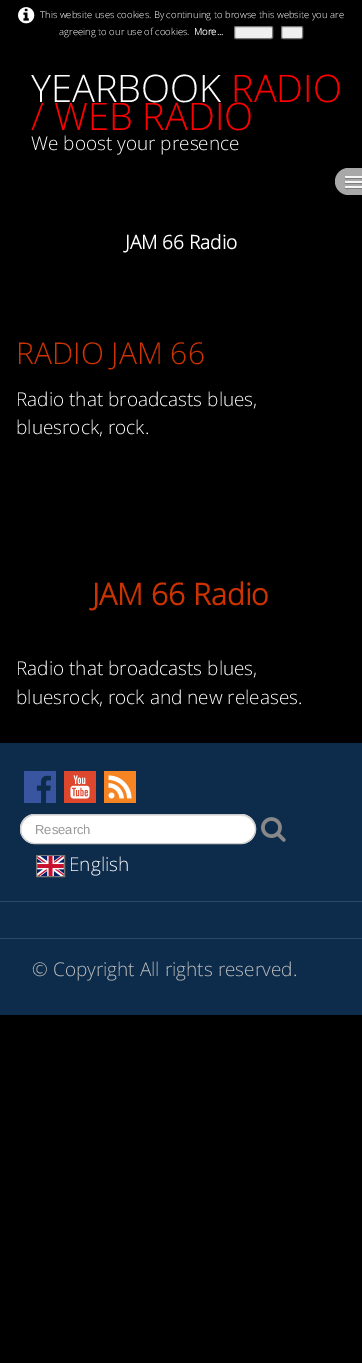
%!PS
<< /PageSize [362 1363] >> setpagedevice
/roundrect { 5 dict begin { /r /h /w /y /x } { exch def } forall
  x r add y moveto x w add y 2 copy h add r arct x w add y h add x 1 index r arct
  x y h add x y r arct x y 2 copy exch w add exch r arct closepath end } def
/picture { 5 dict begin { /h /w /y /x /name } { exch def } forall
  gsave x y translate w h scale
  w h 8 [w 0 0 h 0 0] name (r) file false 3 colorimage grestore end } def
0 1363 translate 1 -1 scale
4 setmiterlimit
0 setgray
0 0 362 1363 rectfill
(img1.rgb) 18 7 17 17 picture
/OpenSans-Light [9.5 0 0 -9.5 0 0] selectfont
1 setgray
40 18 moveto (This website uses cookies. By continuing to browse this website you are) show
59 35 moveto (agreeing to our use of cookies.) show
/OpenSans-Bold [9.5 0 0 -9.5 0 0] selectfont
194 35 moveto (More...) show
0.937 setgray
234.5 26.5 38 12 1.5 roundrect gsave fill grestore
0.463 setgray
stroke
0.937 setgray
281.5 26.5 21 12 1.5 roundrect gsave fill grestore
0.463 setgray
stroke
/OpenSans-Light [38 0 0 -38 0 0] selectfont
1 setgray
31 102 moveto (YEARBOOK) show
1 0 0 setrgbcolor
231 102 moveto (RADIO) show
31 130 moveto (/ WEB RADIO) show
/OpenSans-Light [19 0 0 -19 0 0] selectfont
1 setgray
31 150 moveto (We boost your presence) show
0.659 setgray
335 168 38 27 13.5 roundrect fill
0.494 setgray
newpath 345 177.5 moveto 344 179.5 348.5 179 348.5 179 curveto 359.5 179 lineto 359.5 179 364 179.5 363 177.5 curveto 362 178.5 355.5 178 354 178 curveto 352.5 178 346 178.5 345 177.5 curveto closepath fill
0.961 setgray
newpath 346 176 moveto 362 176 lineto 362 178 lineto 346 178 lineto 345.5 178 345 177.5 345 177 curveto 345 176.5 345.5 176 346 176 curveto closepath fill
0.494 setgray
newpath 345 182.5 moveto 344 184.5 348.5 184 348.5 184 curveto 359.5 184 lineto 359.5 184 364 184.5 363 182.5 curveto 362 183.5 355.5 183 354 183 curveto 352.5 183 346 183.5 345 182.5 curveto closepath fill
0.961 setgray
newpath 346 181 moveto 362 181 lineto 362 183 lineto 346 183 lineto 345.5 183 345 182.5 345 182 curveto 345 181.5 345.5 181 346 181 curveto closepath fill
0.494 setgray
newpath 345 187.5 moveto 344 189.5 348.5 189 348.5 189 curveto 359.5 189 lineto 359.5 189 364 189.5 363 187.5 curveto 362 188.5 355.5 188 354 188 curveto 352.5 188 346 188.5 345 187.5 curveto closepath fill
0.961 setgray
newpath 346 186 moveto 362 186 lineto 362 188 lineto 346 188 lineto 345.5 188 345 187.5 345 187 curveto 345 186.5 345.5 186 346 186 curveto closepath fill
/OpenSans-Bold [19 0 0 -19 0 0] selectfont
1 setgray
125 249 moveto (JAM 66 Radio) show
/OpenSans-Light [30 0 0 -30 0 0] selectfont
0.8 0.2 0 setrgbcolor
16 364 moveto (RADIO JAM 66) show
/OpenSans-Light [19 0 0 -19 0 0] selectfont
1 setgray
16 406 moveto (Radio that broadcasts blues,) show
16 434 moveto (bluesrock, rock.) show
/OpenSans-Bold [30 0 0 -30 0 0] selectfont
0.8 0.2 0 setrgbcolor
92 605 moveto (JAM 66 Radio) show
/OpenSans-Light [19 0 0 -19 0 0] selectfont
1 setgray
16 675 moveto (Radio that broadcasts blues,) show
16 704 moveto (bluesrock, rock and new releases.) show
0.051 0.169 0.29 setrgbcolor
0 743 362 272 rectfill
(img2.rgb) 24 771 32 32 picture
(img3.rgb) 64 771 32 32 picture
(img4.rgb) 104 771 32 32 picture
1 setgray
20 814 236 30 15 roundrect fill
0.925 setgray
newpath 35 816 moveto 241 816 lineto 246 817 lineto 251 819 254 824 255 829 curveto 255 821 249 815 241 815 curveto 35 815 lineto 27 815 21 821 21 829 curveto 21 831 21 833 22 835 curveto 20 826 24 816 35 816 curveto closepath fill
0.8 setgray
20.5 814.5 235 29 14.5 roundrect stroke
/LiberationSans-Regular [13 0 0 -13 0 0] selectfont
0.6 setgray
35 834 moveto (Research) show
(img5.rgb) 261 817 25 25 picture
0.471 setgray
36.5 855.5 28 21 rectstroke
(img6.rgb) 37 856 27 20 picture
/OpenSans-Light [19 0 0 -19 0 0] selectfont
1 setgray
69 871 moveto (English) show
0.173 0.278 0.384 setrgbcolor
0 901 362 1 rectfill
0 938 362 1 rectfill
0.749 setgray
32 976 moveto (© Copyright All rights reserved.) show
showpage
